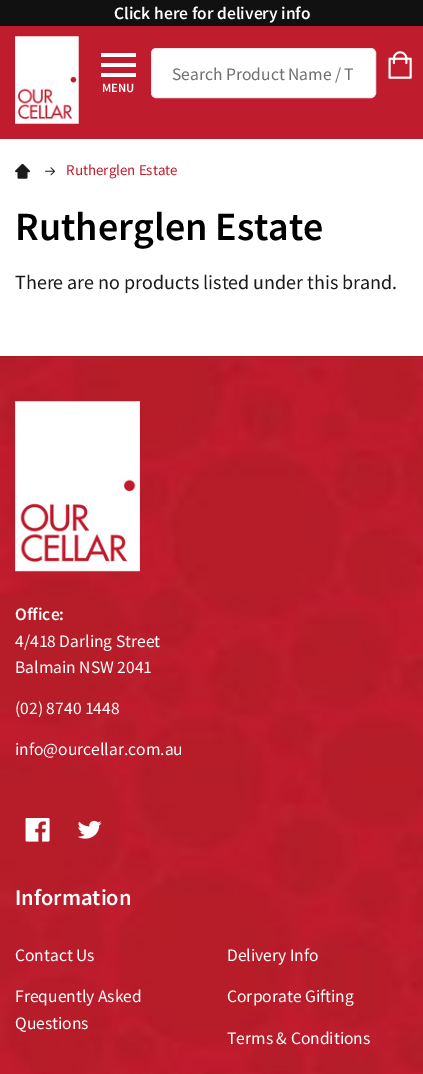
%!PS
<< /PageSize [423 1074] >> setpagedevice
/roundrect { 5 dict begin { /r /h /w /y /x } { exch def } forall
  x r add y moveto x w add y 2 copy h add r arct x w add y h add x 1 index r arct
  x y h add x y r arct x y 2 copy exch w add exch r arct closepath end } def
/picture { 5 dict begin { /h /w /y /x /name } { exch def } forall
  gsave x y translate w h scale
  w h 8 [w 0 0 h 0 0] name (r) file false 3 colorimage grestore end } def
0 1074 translate 1 -1 scale
4 setmiterlimit
1 setgray
0 0 423 1074 rectfill
0.749 0.11 0.176 setrgbcolor
0 26 423 113 rectfill
0.067 setgray
0 0 423 26 rectfill
/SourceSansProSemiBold-SemiBold [17.5 0 0 -17.5 0 0] selectfont
1 setgray
114 19 moveto (Click here for delivery info) show
(img1.rgb) 15 36 64 88 picture
151.5 48.5 224 49 4.5 roundrect gsave fill grestore
0.918 setgray
stroke
/SourceSansPro-Regular [17.5 0 0 -17.5 0 0] selectfont
0.439 setgray
172 80 moveto (Search Product Name / T) show
1 setgray
101 63 35 4 rectfill
101 53 35 4 rectfill
101 73 35 4 rectfill
/SourceSansProSemiBold-SemiBold [12.5 0 0 -12.5 0 0] selectfont
102 92 moveto (MENU) show
(img2.rgb) 388 51 24 28 picture
(img3.rgb) 15 164 15 15 picture
(img4.rgb) 45 167 10 9 picture
/SourceSansPro-Regular [15 0 0 -15 0 0] selectfont
0.749 0.11 0.176 setrgbcolor
66 175 moveto (Rutherglen Estate) show
/SourceSansProSemiBold-SemiBold [40 0 0 -40 0 0] selectfont
0 setgray
15 240 moveto (Rutherglen Estate) show
/SourceSansPro-Regular [20 0 0 -20 0 0] selectfont
0.102 setgray
15 289 moveto (There are no products listed under this brand.) show
(img5.rgb) 0 356 423 718 picture
(img6.rgb) 15 401 125 171 picture
/SourceSansProSemiBold-SemiBold [17.5 0 0 -17.5 0 0] selectfont
1 setgray
15 620 moveto (Office:) show
/SourceSansPro-Regular [17.5 0 0 -17.5 0 0] selectfont
15 647 moveto (4/418 Darling Street) show
15 673 moveto (Balmain NSW 2041) show
15 714 moveto (\(02\) 8740 1448) show
15 755 moveto (info@ourcellar.com.au) show
(img7.rgb) 25 818 25 24 picture
(img8.rgb) 78 820 24 19 picture
/SourceSansProSemiBold-SemiBold [22.5 0 0 -22.5 0 0] selectfont
15 905 moveto (Information) show
/SourceSansPro-Regular [17.5 0 0 -17.5 0 0] selectfont
15 961 moveto (Contact Us) show
227 961 moveto (Delivery Info) show
15 1002 moveto (Frequently Asked) show
15 1029 moveto (Questions) show
227 1002 moveto (Corporate Gifting) show
227 1044 moveto (Terms & Conditions) show
showpage
